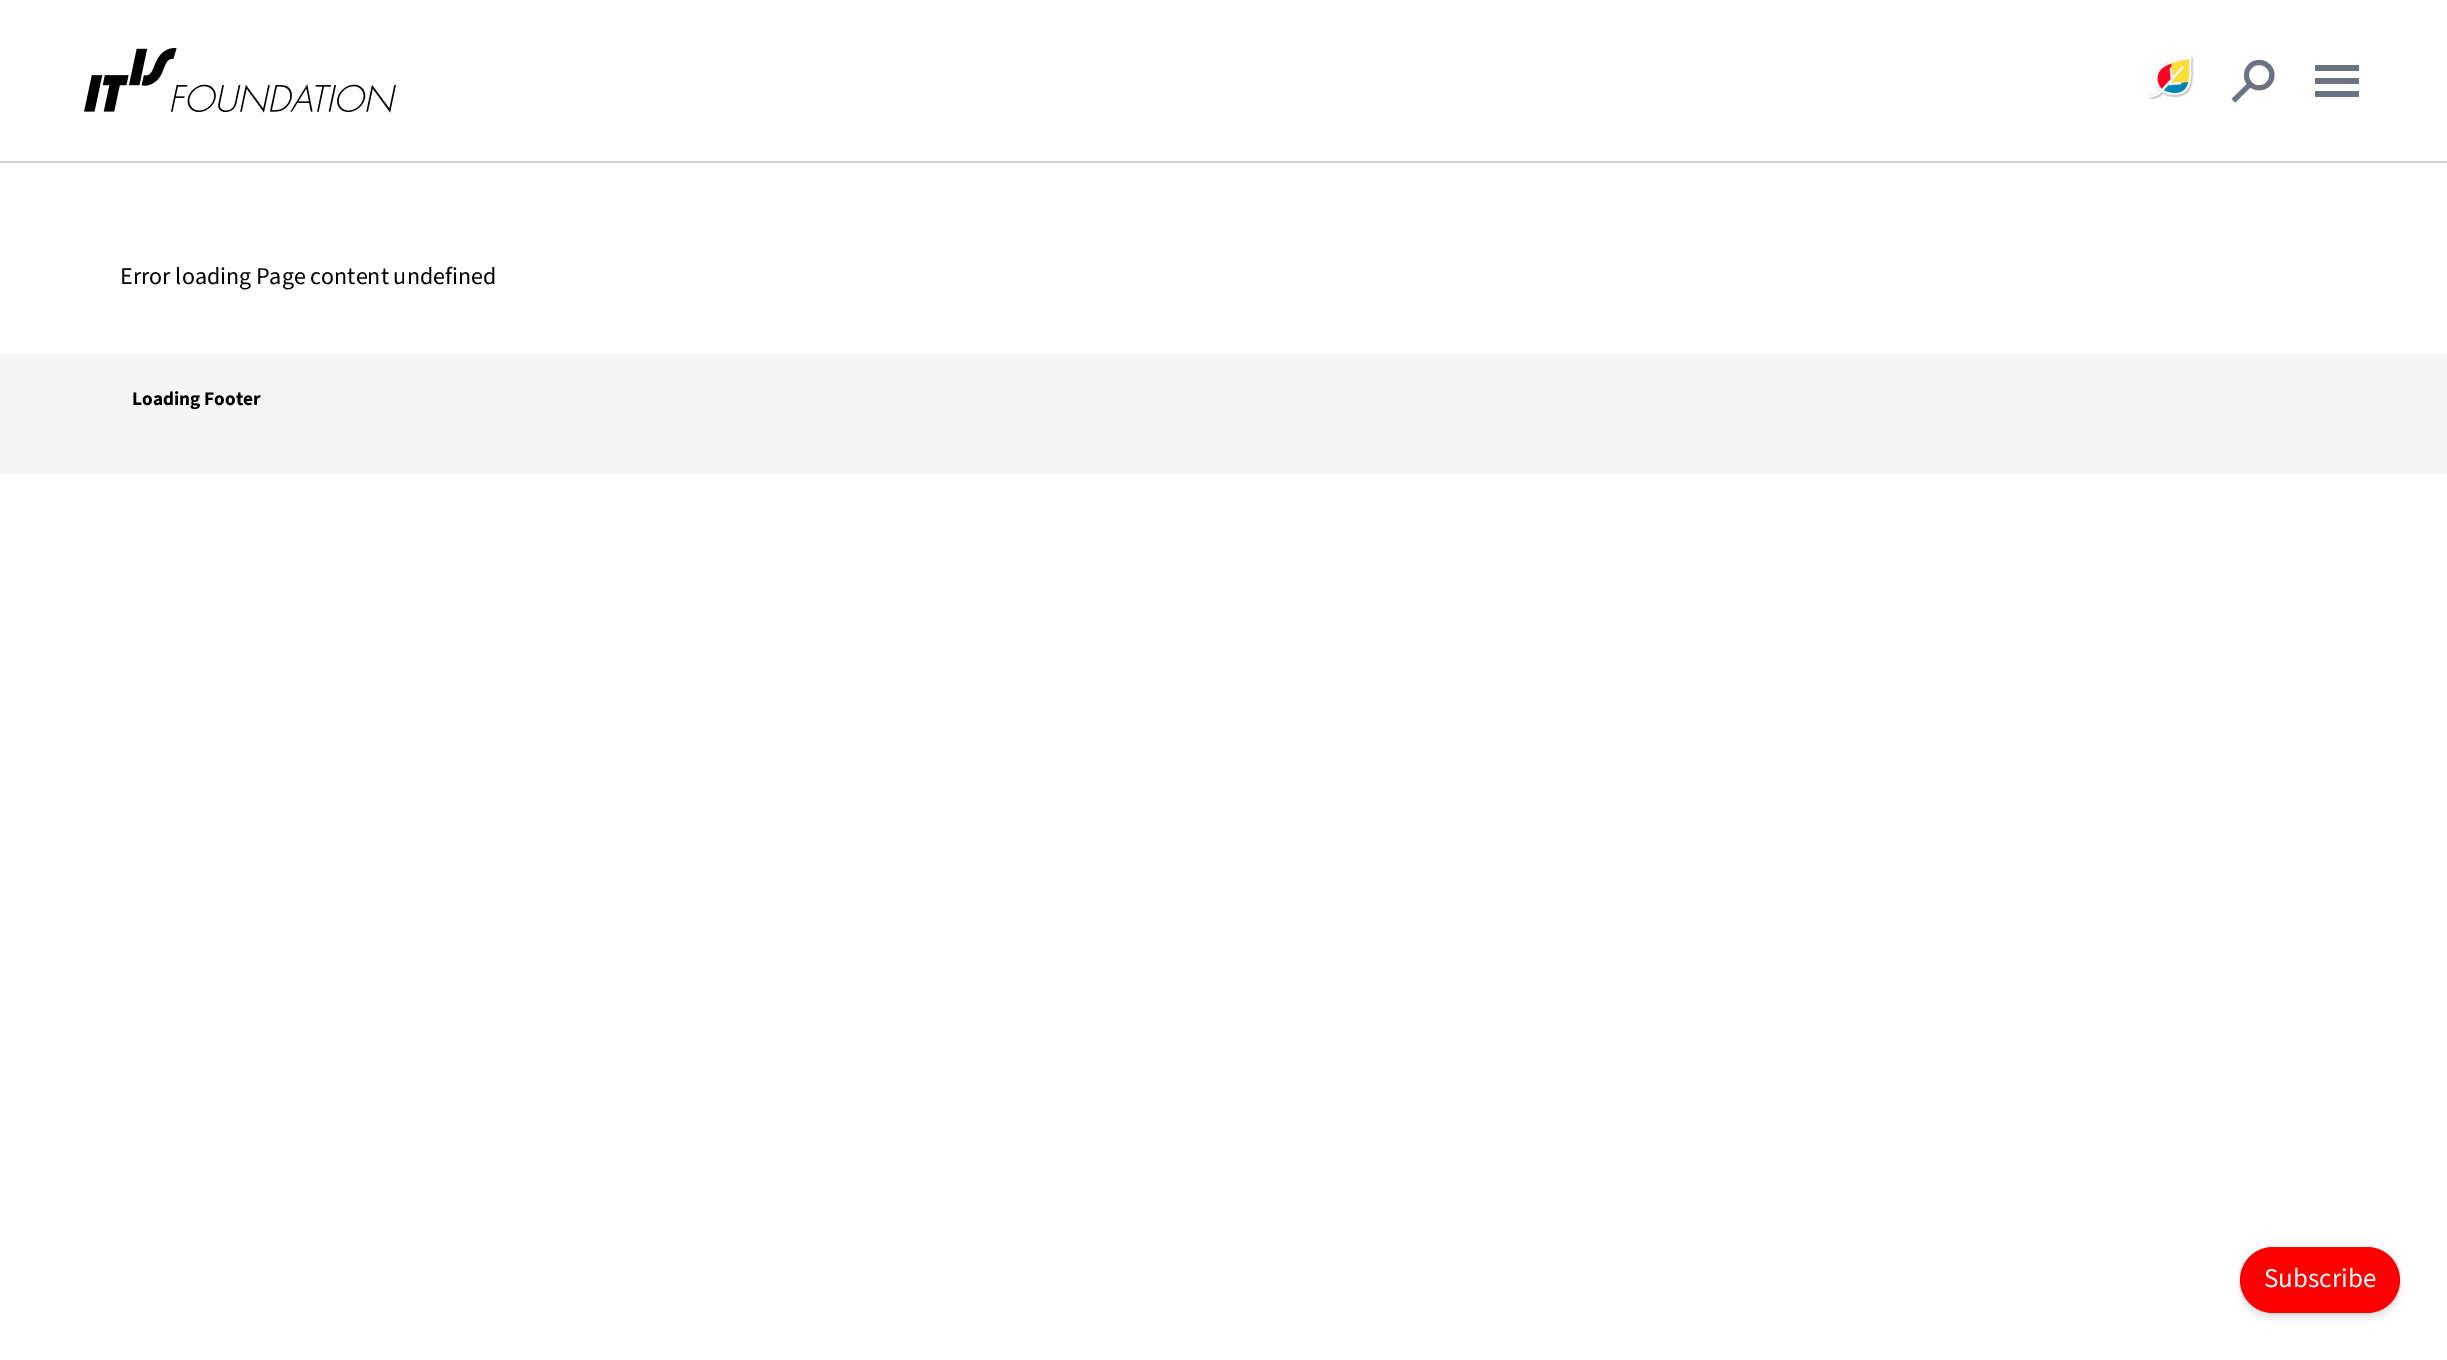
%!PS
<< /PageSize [2447 1360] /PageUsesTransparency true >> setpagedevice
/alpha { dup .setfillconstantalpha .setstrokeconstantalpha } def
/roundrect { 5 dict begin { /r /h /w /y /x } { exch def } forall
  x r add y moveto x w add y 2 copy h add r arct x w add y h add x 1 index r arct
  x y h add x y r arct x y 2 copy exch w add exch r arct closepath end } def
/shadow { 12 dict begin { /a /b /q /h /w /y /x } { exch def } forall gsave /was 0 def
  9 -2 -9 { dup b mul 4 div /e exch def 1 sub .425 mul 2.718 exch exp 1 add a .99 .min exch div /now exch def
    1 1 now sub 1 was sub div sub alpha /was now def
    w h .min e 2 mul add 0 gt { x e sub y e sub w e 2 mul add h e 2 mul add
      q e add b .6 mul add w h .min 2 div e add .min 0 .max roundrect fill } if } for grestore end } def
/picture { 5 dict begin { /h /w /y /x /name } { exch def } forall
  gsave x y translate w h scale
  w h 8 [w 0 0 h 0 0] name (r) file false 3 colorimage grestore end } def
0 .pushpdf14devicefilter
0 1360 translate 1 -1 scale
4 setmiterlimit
1 setgray
0 0 2447 1360 rectfill
0.82 0.835 0.859 setrgbcolor
0 161 2447 2 rectfill
(img1.rgb) 84 48 312 65 picture
(img2.rgb) 2149 56 45 44 picture
(img3.rgb) 2231 59 44 44 picture
0.42 0.447 0.502 setrgbcolor
newpath 2315 97 moveto 2315 91 lineto 2359 91 lineto 2359 97 lineto closepath 2315 84 moveto 2315 78 lineto 2359 78 lineto 2359 84 lineto closepath 2315 71 moveto 2315 65 lineto 2359 65 lineto 2359 71 lineto closepath fill
/SourceSans3-ExtraLight [24 0 0 -24 0 0] selectfont
0 setgray
120 284 moveto (Error loading Page content undefined) show
0.961 setgray
0 354 2447 120 rectfill
/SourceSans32-ExtraLight [19.25 0 0 -19.25 0 0] selectfont
0 setgray
132 405 moveto (Loading Footer) show
2243 1253 154 60 30 3 0.1 shadow
2241 1254 158 63 31.5 4.5 0.1 shadow
1 0 0 setrgbcolor
2240 1247 160 66 33 roundrect fill
/SourceSans3-ExtraLight [27 0 0 -27 0 0] selectfont
1 setgray
2264 1287 moveto (Subscribe) show
.poppdf14devicefilter showpage
